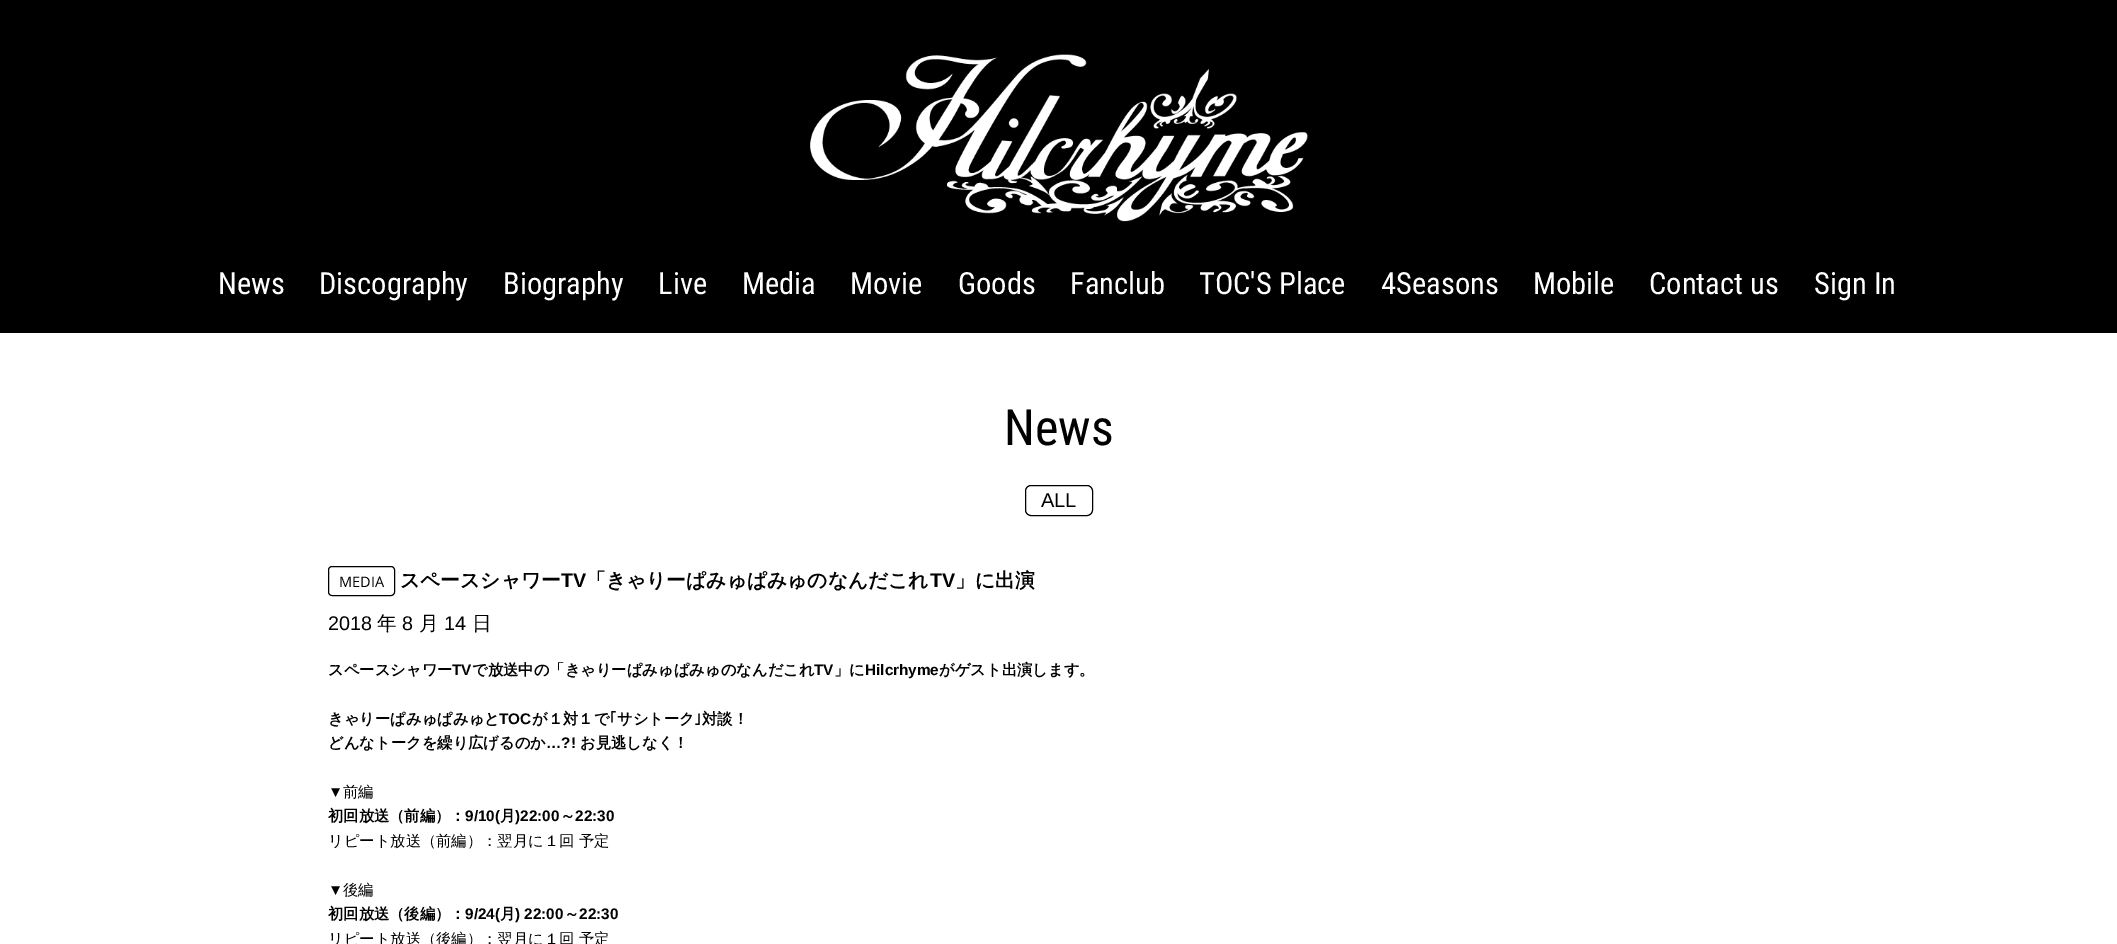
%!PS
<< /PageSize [2117 944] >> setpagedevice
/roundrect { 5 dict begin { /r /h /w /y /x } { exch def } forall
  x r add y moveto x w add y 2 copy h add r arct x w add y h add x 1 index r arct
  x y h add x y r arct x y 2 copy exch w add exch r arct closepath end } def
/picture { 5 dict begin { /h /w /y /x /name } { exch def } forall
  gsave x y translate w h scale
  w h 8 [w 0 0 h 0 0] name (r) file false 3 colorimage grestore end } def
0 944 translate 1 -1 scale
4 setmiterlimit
1 setgray
0 0 2117 944 rectfill
0 setgray
0 0 2117 333 rectfill
(img1.rgb) 810 54 498 168 picture
/RobotoCondensed-Regular [30.5 0 0 -30.5 0 0] selectfont
1 setgray
218 294 moveto (News) show
319 294 moveto (Discography) show
503 294 moveto (Biography) show
658 294 moveto (Live) show
742 294 moveto (Media) show
850 294 moveto (Movie) show
958 294 moveto (Goods) show
1070 294 moveto (Fanclub) show
1199 294 moveto (TOC'S Place) show
1381 294 moveto (4Seasons) show
1533 294 moveto (Mobile) show
1649 294 moveto (Contact us) show
1814 294 moveto (Sign In) show
/RobotoCondensed-Regular [50 0 0 -50 0 0] selectfont
0 setgray
1004 445 moveto (News) show
1025.5 485.5 67 30 5.5 roundrect stroke
/LiberationSans-Regular [20 0 0 -20 0 0] selectfont
1041 507 moveto (ALL) show
328.5 566.5 66 29 3.5 roundrect stroke
/OpenSans-Regular [14.5 0 0 -14.5 0 0] selectfont
339 587 moveto (MEDIA) show
/WenQuanYiZenHei-Bold [19.75 0 0 -19.75 0 0] selectfont
400 587 moveto (スペースシャワー) show
/LiberationSans-Bold [19.75 0 0 -19.75 0 0] selectfont
561 587 moveto (TV) show
/WenQuanYiZenHei-Bold [19.75 0 0 -19.75 0 0] selectfont
586 587 moveto (「きゃりーぱみゅぱみゅのなんだこれ) show
/LiberationSans-Bold [19.75 0 0 -19.75 0 0] selectfont
930 587 moveto (TV) show
/WenQuanYiZenHei-Bold [19.75 0 0 -19.75 0 0] selectfont
955 587 moveto (」に出演) show
/LiberationSans-Regular [19.75 0 0 -19.75 0 0] selectfont
328 630 moveto (2018) show
/WenQuanYiZenHei-Medium [19.75 0 0 -19.75 0 0] selectfont
377 630 moveto (年) show
/LiberationSans-Regular [19.75 0 0 -19.75 0 0] selectfont
402 630 moveto (8) show
/WenQuanYiZenHei-Medium [19.75 0 0 -19.75 0 0] selectfont
419 630 moveto (月) show
/LiberationSans-Regular [19.75 0 0 -19.75 0 0] selectfont
444 630 moveto (14) show
/WenQuanYiZenHei-Medium [19.75 0 0 -19.75 0 0] selectfont
472 630 moveto (日) show
/WenQuanYiZenHei-Bold [15.3 0 0 -15.3 0 0] selectfont
328 675 moveto (スペースシャワー) show
/LiberationSans-Bold [15.3 0 0 -15.3 0 0] selectfont
452 675 moveto (TV) show
/WenQuanYiZenHei-Bold [15.3 0 0 -15.3 0 0] selectfont
472 675 moveto (で放送中の「きゃりーぱみゅぱみゅのなんだこれ) show
/LiberationSans-Bold [15.3 0 0 -15.3 0 0] selectfont
814 675 moveto (TV) show
/WenQuanYiZenHei-Bold [15.3 0 0 -15.3 0 0] selectfont
834 675 moveto (」に) show
/LiberationSans-Bold [15.3 0 0 -15.3 0 0] selectfont
865 675 moveto (Hilcrhyme) show
/WenQuanYiZenHei-Bold [15.3 0 0 -15.3 0 0] selectfont
939 675 moveto (がゲスト出演します。) show
328 724 moveto (きゃりーぱみゅぱみゅと) show
/LiberationSans-Bold [15.3 0 0 -15.3 0 0] selectfont
499 724 moveto (TOC) show
/WenQuanYiZenHei-Bold [15.3 0 0 -15.3 0 0] selectfont
532 724 moveto (が１対１で) show
/IPAPGothic-Bold [15.3 0 0 -15.3 0 0] selectfont
609 724 moveto (｢) show
/WenQuanYiZenHei-Bold [15.3 0 0 -15.3 0 0] selectfont
617 724 moveto (サシトーク) show
/IPAPGothic-Bold [15.3 0 0 -15.3 0 0] selectfont
694 724 moveto (｣) show
/WenQuanYiZenHei-Bold [15.3 0 0 -15.3 0 0] selectfont
702 724 moveto (対談！) show
328 748 moveto (どんなトークを繰り広げるのか) show
/LiberationSans-Bold [15.3 0 0 -15.3 0 0] selectfont
546 748 moveto (…?!) show
/WenQuanYiZenHei-Bold [15.3 0 0 -15.3 0 0] selectfont
580 748 moveto (お見逃しなく！) show
/LiberationSans-Regular [15.3 0 0 -15.3 0 0] selectfont
328 797 moveto (▼) show
/WenQuanYiZenHei-Medium [15.3 0 0 -15.3 0 0] selectfont
343 797 moveto (前編) show
/WenQuanYiZenHei-Bold [15.3 0 0 -15.3 0 0] selectfont
328 821 moveto (初回放送（前編）：) show
/LiberationSans-Bold [15.3 0 0 -15.3 0 0] selectfont
465 821 moveto (9/10\() show
/WenQuanYiZenHei-Bold [15.3 0 0 -15.3 0 0] selectfont
500 821 moveto (月) show
/LiberationSans-Bold [15.3 0 0 -15.3 0 0] selectfont
515 821 moveto (\)22:00) show
/WenQuanYiZenHei-Bold [15.3 0 0 -15.3 0 0] selectfont
560 821 moveto (～) show
/LiberationSans-Bold [15.3 0 0 -15.3 0 0] selectfont
575 821 moveto (22:30) show
/WenQuanYiZenHei-Medium [15.3 0 0 -15.3 0 0] selectfont
328 846 moveto (リピート放送（前編）：翌月に１回 予定) show
/LiberationSans-Regular [15.3 0 0 -15.3 0 0] selectfont
328 895 moveto (▼) show
/WenQuanYiZenHei-Medium [15.3 0 0 -15.3 0 0] selectfont
343 895 moveto (後編) show
/WenQuanYiZenHei-Bold [15.3 0 0 -15.3 0 0] selectfont
328 919 moveto (初回放送（後編）：) show
/LiberationSans-Bold [15.3 0 0 -15.3 0 0] selectfont
465 919 moveto (9/24\() show
/WenQuanYiZenHei-Bold [15.3 0 0 -15.3 0 0] selectfont
500 919 moveto (月) show
/LiberationSans-Bold [15.3 0 0 -15.3 0 0] selectfont
515 919 moveto (\) 22:00) show
/WenQuanYiZenHei-Bold [15.3 0 0 -15.3 0 0] selectfont
564 919 moveto (～) show
/LiberationSans-Bold [15.3 0 0 -15.3 0 0] selectfont
579 919 moveto (22:30) show
/WenQuanYiZenHei-Medium [15.3 0 0 -15.3 0 0] selectfont
328 944 moveto (リピート放送（後編）：翌月に１回 予定) show
showpage
